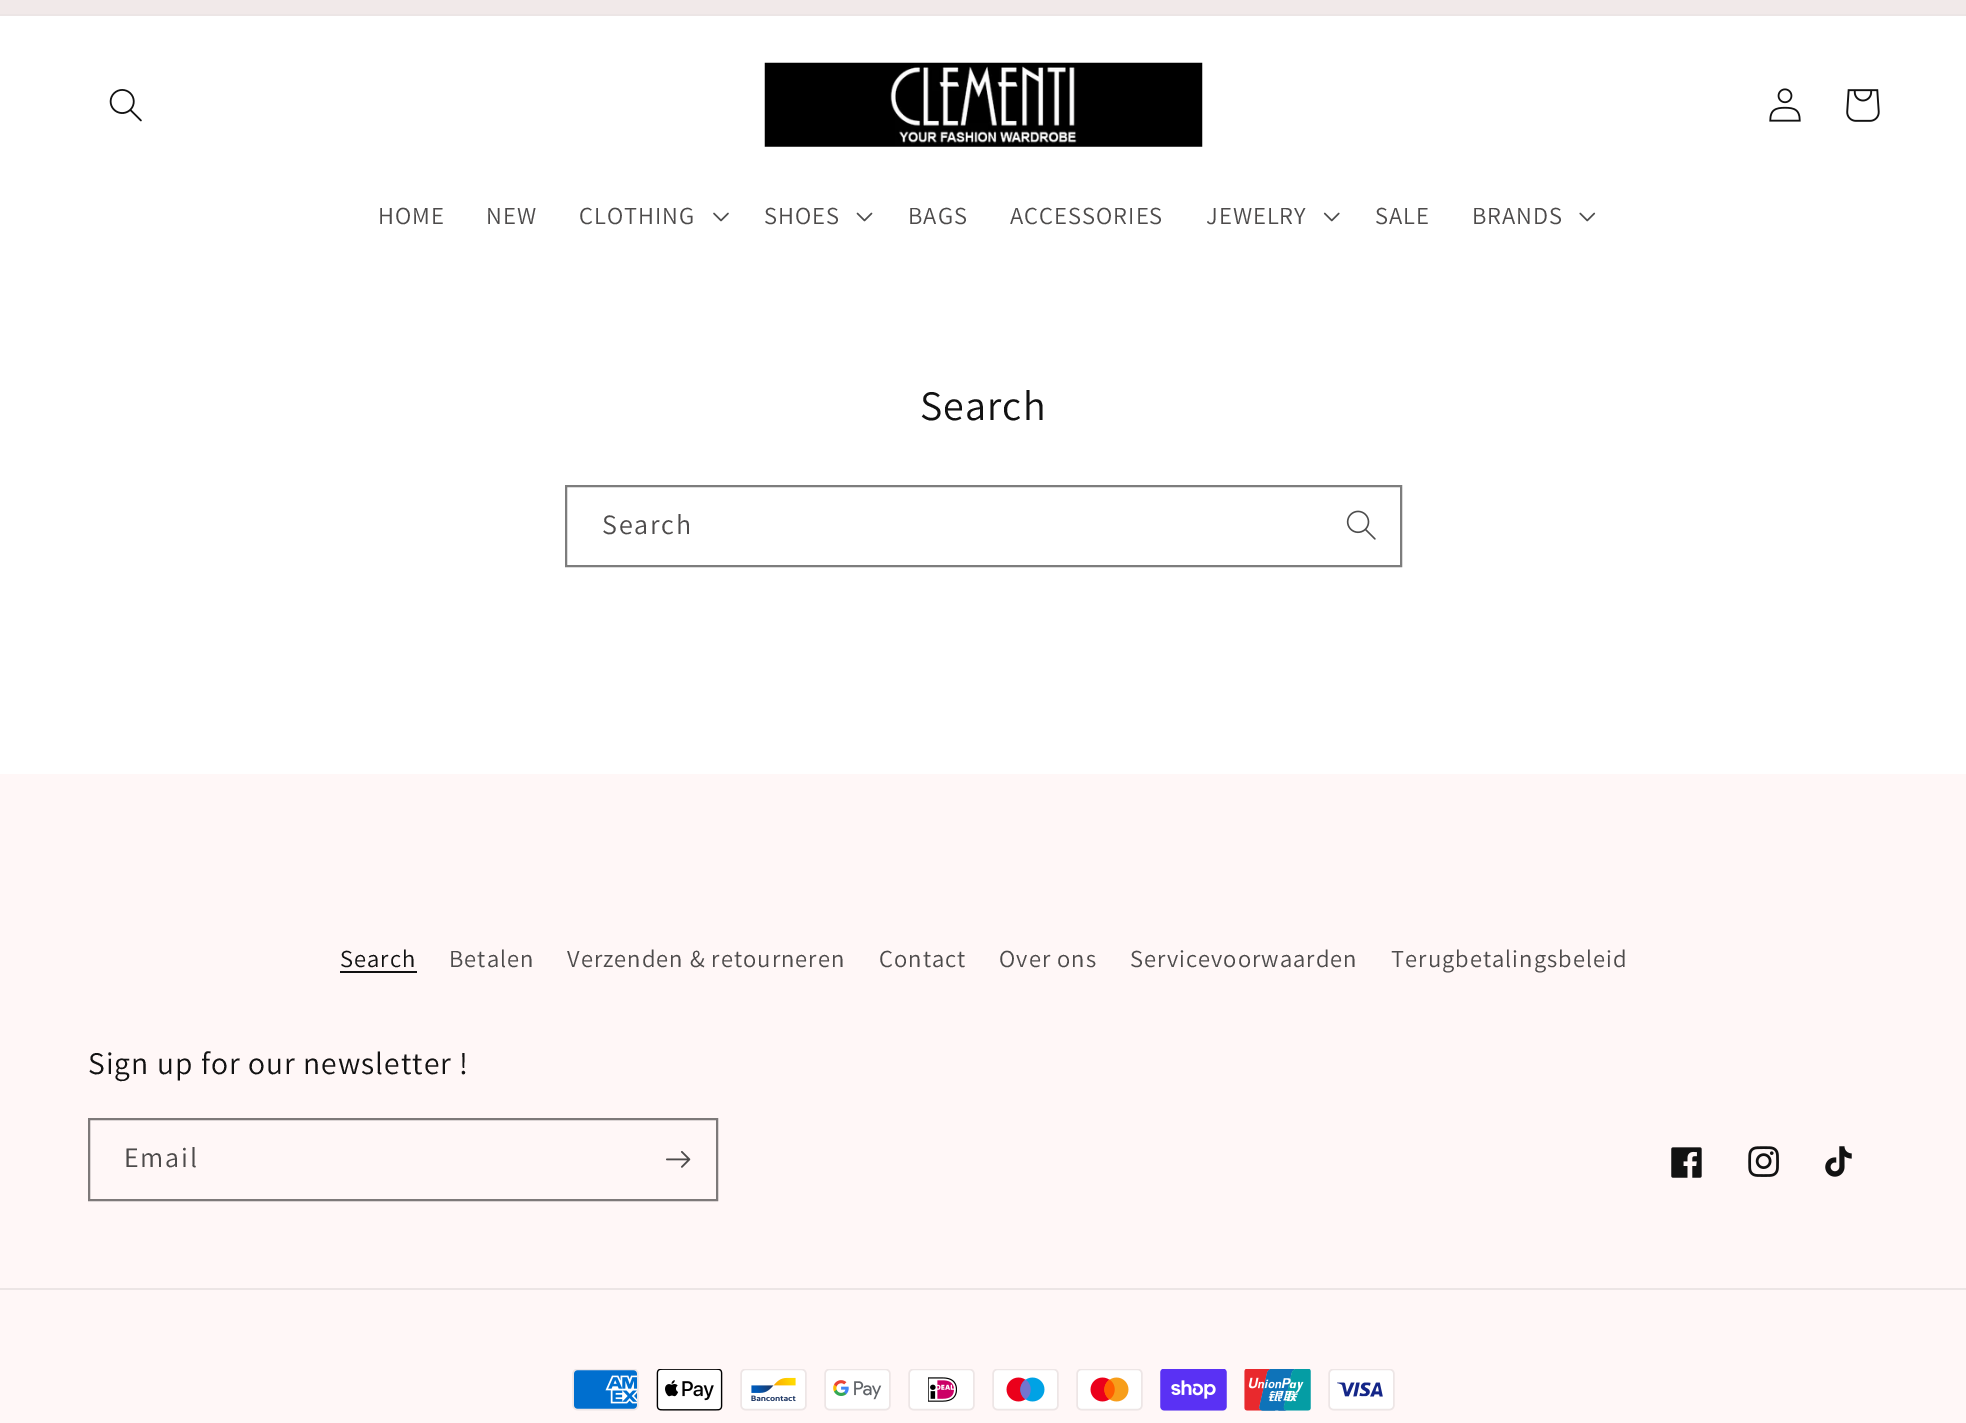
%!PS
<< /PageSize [1966 1423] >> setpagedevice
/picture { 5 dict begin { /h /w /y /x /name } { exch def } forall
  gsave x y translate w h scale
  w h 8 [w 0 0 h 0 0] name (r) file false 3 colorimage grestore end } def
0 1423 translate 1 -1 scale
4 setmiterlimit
1 setgray
0 0 1966 1423 rectfill
0.925 0.898 0.898 setrgbcolor
0 14 1966 2 rectfill
0.945 0.914 0.914 setrgbcolor
0 0 1966 14 rectfill
(img1.rgb) 109 89 33 33 picture
(img2.rgb) 764 62 439 85 picture
(img3.rgb) 1769 88 32 34 picture
(img4.rgb) 1846 89 34 33 picture
/Assistant-Regular [24.5 0 0 -24.5 0 0] selectfont
0.302 0.294 0.294 setrgbcolor
378 224 moveto 1.05 0 (HOME) ashow
486 224 moveto 1.05 0 (NEW) ashow
579 224 moveto 1.05 0 (CLOTHING) ashow
(img5.rgb) 713 212 16 10 picture
764 224 moveto 1.05 0 (SHOES) ashow
(img6.rgb) 856 212 17 10 picture
908 224 moveto 1.05 0 (BAGS) ashow
1010 224 moveto 1.05 0 (ACCESSORIES) ashow
1206 224 moveto 1.05 0 (JEWELRY) ashow
(img7.rgb) 1323 212 17 10 picture
1375 224 moveto 1.05 0 (SALE) ashow
1472 224 moveto 1.05 0 (BRANDS) ashow
(img8.rgb) 1579 212 17 10 picture
/Assistant-Regular [42 0 0 -42 0 0] selectfont
0.071 setgray
920 420 moveto 1.05 0 (Search) ashow
(img9.rgb) 1346 510 30 30 picture
0.49 setgray
2 setlinewidth
566 486 835 80 rectstroke
/Assistant-Regular [28 0 0 -28 0 0] selectfont
0.302 0.294 0.294 setrgbcolor
602 534 moveto 1.75 0 (Search) ashow
1 0.969 0.969 setrgbcolor
0 774 1966 649 rectfill
/Assistant-Regular [24.5 0 0 -24.5 0 0] selectfont
0.071 setgray
340 967 moveto 1.05 0 (Search) ashow
340 971 77 2 rectfill
0.302 0.294 0.294 setrgbcolor
449 967 moveto 1.05 0 (Betalen) ashow
567 967 moveto 1.05 0 (Verzenden & retourneren) ashow
879 967 moveto 1.05 0 (Contact) ashow
999 967 moveto 1.05 0 (Over ons) ashow
1130 967 moveto 1.05 0 (Servicevoorwaarden) ashow
1391 967 moveto 1.05 0 (Terugbetalingsbeleid) ashow
/Assistant-Regular [31.5 0 0 -31.5 0 0] selectfont
0.071 setgray
88 1074 moveto 1.05 0 (Sign up for our newsletter !) ashow
0.49 0.475 0.475 setrgbcolor
89 1119 628 81 rectstroke
/Assistant-Regular [28 0 0 -28 0 0] selectfont
0.302 0.294 0.294 setrgbcolor
124 1167 moveto 1.75 0 (Email) ashow
(img10.rgb) 666 1151 25 17 picture
(img11.rgb) 1671 1147 31 31 picture
(img12.rgb) 1748 1146 31 31 picture
(img13.rgb) 1825 1146 27 31 picture
0.925 0.898 0.898 setrgbcolor
0 1288 1966 2 rectfill
(img14.rgb) 572 1369 67 42 picture
(img15.rgb) 656 1369 67 42 picture
(img16.rgb) 740 1369 67 42 picture
(img17.rgb) 824 1369 67 42 picture
(img18.rgb) 908 1369 67 42 picture
(img19.rgb) 992 1369 67 42 picture
(img20.rgb) 1076 1369 67 42 picture
(img21.rgb) 1160 1369 67 42 picture
(img22.rgb) 1244 1369 67 42 picture
(img23.rgb) 1328 1369 67 42 picture
showpage
